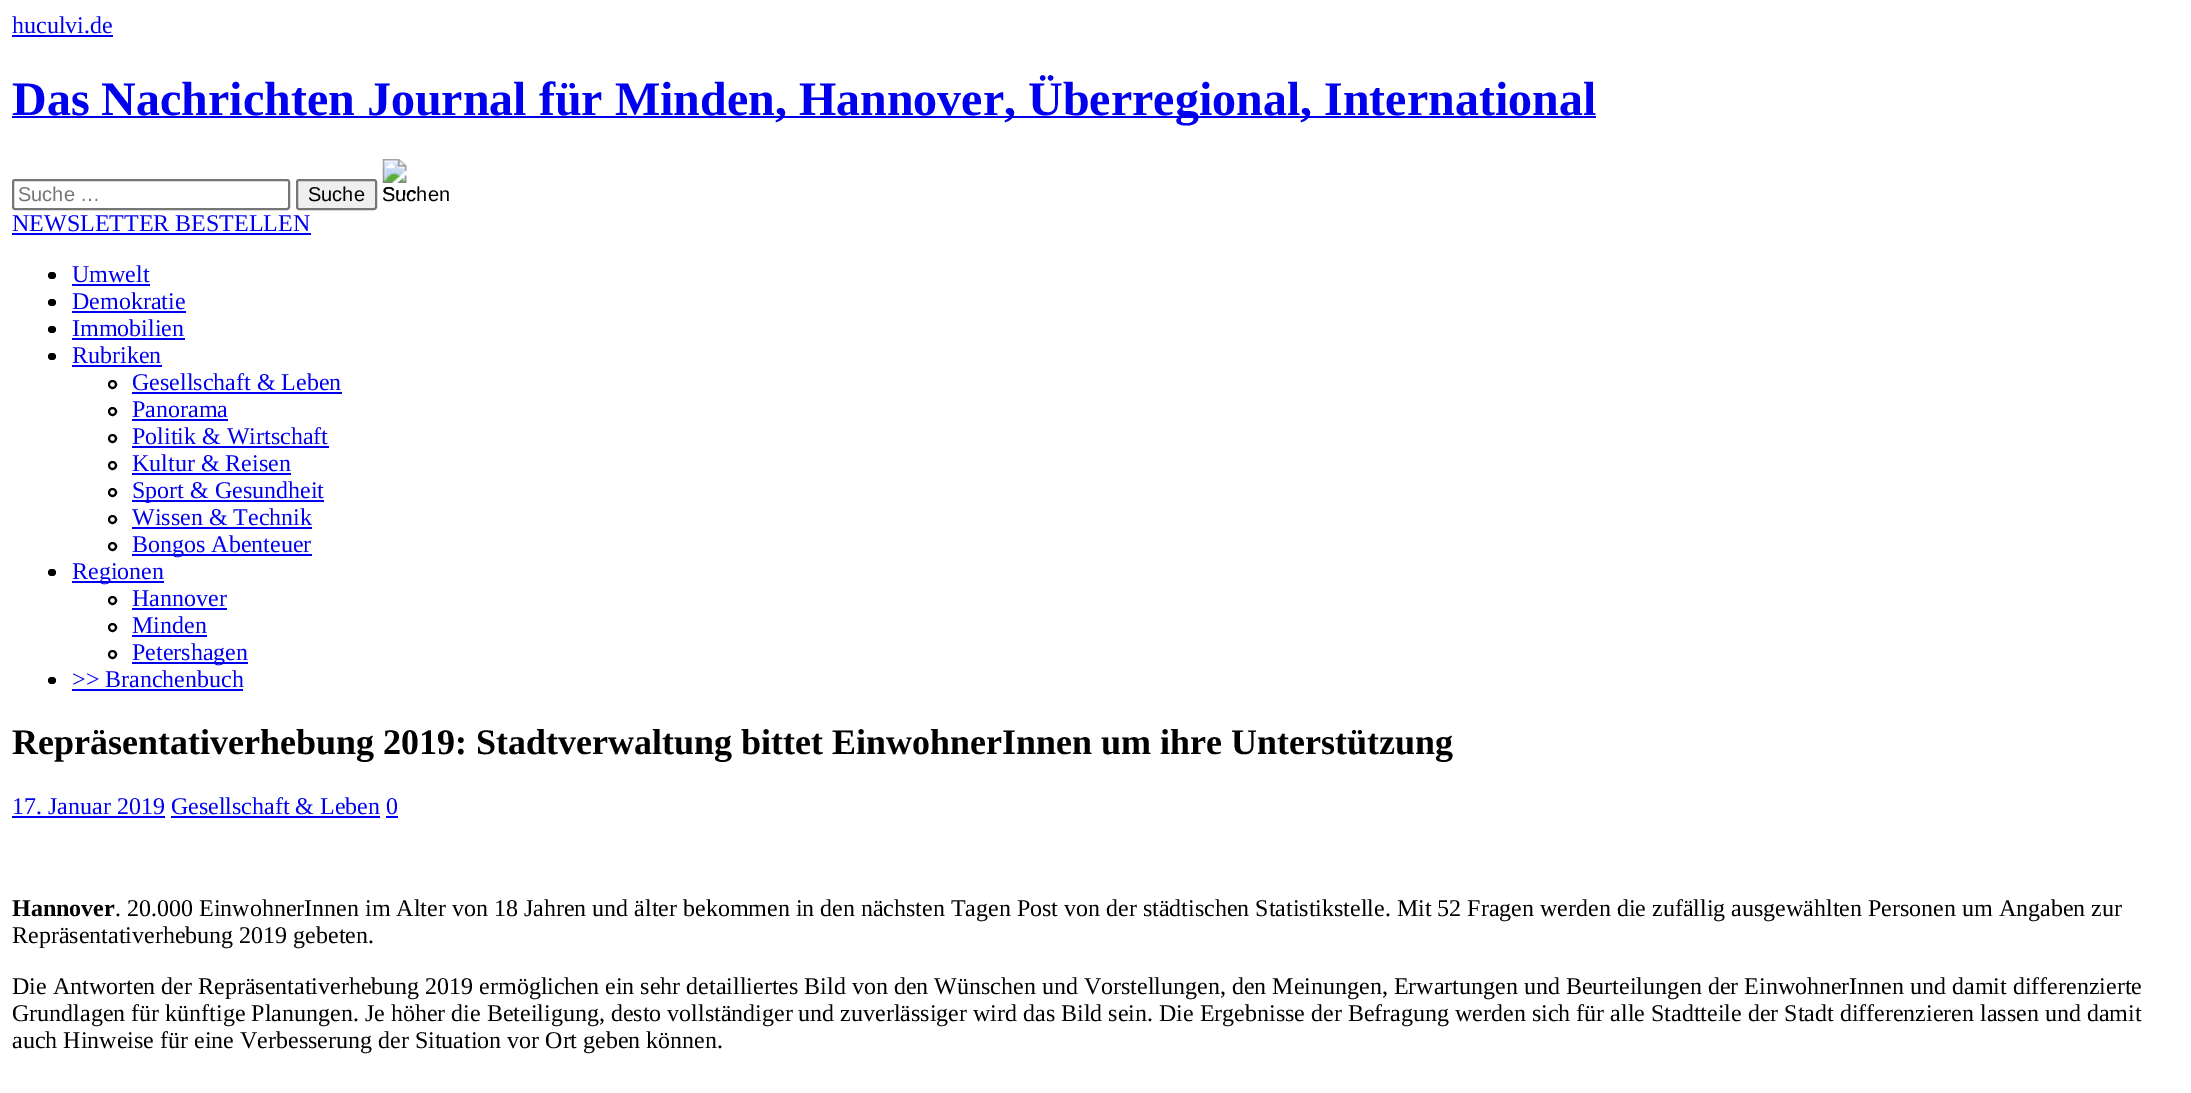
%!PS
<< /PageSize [2191 1093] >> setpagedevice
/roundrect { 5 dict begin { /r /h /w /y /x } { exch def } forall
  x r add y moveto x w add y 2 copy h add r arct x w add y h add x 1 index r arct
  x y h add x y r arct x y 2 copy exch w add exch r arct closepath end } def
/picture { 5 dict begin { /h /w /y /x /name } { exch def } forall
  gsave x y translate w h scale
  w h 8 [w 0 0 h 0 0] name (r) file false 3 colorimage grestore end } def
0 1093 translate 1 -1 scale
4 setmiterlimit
1 setgray
0 0 2191 1093 rectfill
/LiberationSerif-Regular [24 0 0 -24 0 0] selectfont
0 0 0.933 setrgbcolor
12 33 moveto (huculvi.de) show
12 35 101 2 rectfill
12 116 1584 2 rectfill
/LiberationSerif-Bold [48 0 0 -48 0 0] selectfont
12 115 moveto (Das Nachrichten Journal für Minden, Hannover, Überregional, International) show
0.463 setgray
2 setlinewidth
13 180 276 29 2 roundrect stroke
/LiberationSans-Regular [20 0 0 -20 0 0] selectfont
0.459 setgray
18 201 moveto (Suche …) show
0.937 setgray
297 180 79 29 2 roundrect gsave fill grestore
0.463 setgray
stroke
0 setgray
308 201 moveto (Suche) show
(img1.rgb) 382 159 37 36 picture
382 201 moveto (Suchen) show
/LiberationSerif-Regular [24 0 0 -24 0 0] selectfont
0 0 0.933 setrgbcolor
12 231 moveto (NEWSLETTER BESTELLEN) show
12 233 299 2 rectfill
0 setgray
48 272 8 7 3.5 roundrect fill
0 0 0.933 setrgbcolor
72 282 moveto (Umwelt) show
72 284 78 2 rectfill
0 setgray
48 299 8 7 3.5 roundrect fill
0 0 0.933 setrgbcolor
72 309 moveto (Demokratie) show
72 311 114 2 rectfill
0 setgray
48 326 8 7 3.5 roundrect fill
0 0 0.933 setrgbcolor
72 336 moveto (Immobilien) show
72 338 113 2 rectfill
0 setgray
48 353 8 7 3.5 roundrect fill
0 0 0.933 setrgbcolor
72 363 moveto (Rubriken) show
72 365 90 2 rectfill
0 setgray
newpath 112.5 384.5 3.5 0 360 arc closepath stroke
0 0 0.933 setrgbcolor
132 390 moveto (Gesellschaft & Leben) show
132 392 210 2 rectfill
0 setgray
newpath 112.5 411.5 3.5 0 360 arc closepath stroke
0 0 0.933 setrgbcolor
132 417 moveto (Panorama) show
132 419 96 2 rectfill
0 setgray
newpath 112.5 438.5 3.5 0 360 arc closepath stroke
0 0 0.933 setrgbcolor
132 444 moveto (Politik & Wirtschaft) show
132 446 197 2 rectfill
0 setgray
newpath 112.5 465.5 3.5 0 360 arc closepath stroke
0 0 0.933 setrgbcolor
132 471 moveto (Kultur & Reisen) show
132 473 159 2 rectfill
0 setgray
newpath 112.5 492.5 3.5 0 360 arc closepath stroke
0 0 0.933 setrgbcolor
132 500 192 2 rectfill
132 498 moveto (Sport & Gesundheit) show
0 setgray
newpath 112.5 519.5 3.5 0 360 arc closepath stroke
0 0 0.933 setrgbcolor
132 525 moveto (Wissen & Technik) show
132 527 180 2 rectfill
0 setgray
newpath 112.5 546.5 3.5 0 360 arc closepath stroke
0 0 0.933 setrgbcolor
132 554 180 2 rectfill
132 552 moveto (Bongos Abenteuer) show
0 setgray
48 569 8 7 3.5 roundrect fill
0 0 0.933 setrgbcolor
72 581 92 2 rectfill
72 579 moveto (Regionen) show
0 setgray
newpath 112.5 600.5 3.5 0 360 arc closepath stroke
0 0 0.933 setrgbcolor
132 606 moveto (Hannover) show
132 608 95 2 rectfill
0 setgray
newpath 112.5 627.5 3.5 0 360 arc closepath stroke
0 0 0.933 setrgbcolor
132 633 moveto (Minden) show
132 635 75 2 rectfill
0 setgray
newpath 112.5 654.5 3.5 0 360 arc closepath stroke
0 0 0.933 setrgbcolor
132 662 116 2 rectfill
132 660 moveto (Petershagen) show
0 setgray
48 677 8 7 3.5 roundrect fill
0 0 0.933 setrgbcolor
72 687 moveto (>> Branchenbuch) show
72 689 171 2 rectfill
/LiberationSerif-Bold [36 0 0 -36 0 0] selectfont
0 setgray
12 754 moveto (Repräsentativerhebung 2019: Stadtverwaltung bittet EinwohnerInnen um ihre Unterstützung) show
/LiberationSerif-Regular [24 0 0 -24 0 0] selectfont
0 0 0.933 setrgbcolor
12 814 moveto (17. Januar 2019 Gesellschaft & Leben 0) show
12 816 153 2 rectfill
171 816 209 2 rectfill
386 816 12 2 rectfill
/LiberationSerif-Bold [24 0 0 -24 0 0] selectfont
0 setgray
12 916 moveto (Hannover) show
/LiberationSerif-Regular [24 0 0 -24 0 0] selectfont
115 916 moveto (. 20.000 EinwohnerInnen im Alter von 18 Jahren und älter bekommen in den nächsten Tagen Post von der städtischen Statistikstelle. Mit 52 Fragen werden die zufällig ausgewählten Personen um Angaben zur) show
12 943 moveto (Repräsentativerhebung 2019 gebeten.) show
12 994 moveto (Die Antworten der Repräsentativerhebung 2019 ermöglichen ein sehr detailliertes Bild von den Wünschen und Vorstellungen, den Meinungen, Erwartungen und Beurteilungen der EinwohnerInnen und damit differenzierte) show
12 1021 moveto (Grundlagen für künftige Planungen. Je höher die Beteiligung, desto vollständiger und zuverlässiger wird das Bild sein. Die Ergebnisse der Befragung werden sich für alle Stadtteile der Stadt differenzieren lassen und damit) show
12 1048 moveto (auch Hinweise für eine Verbesserung der Situation vor Ort geben können.) show
showpage
